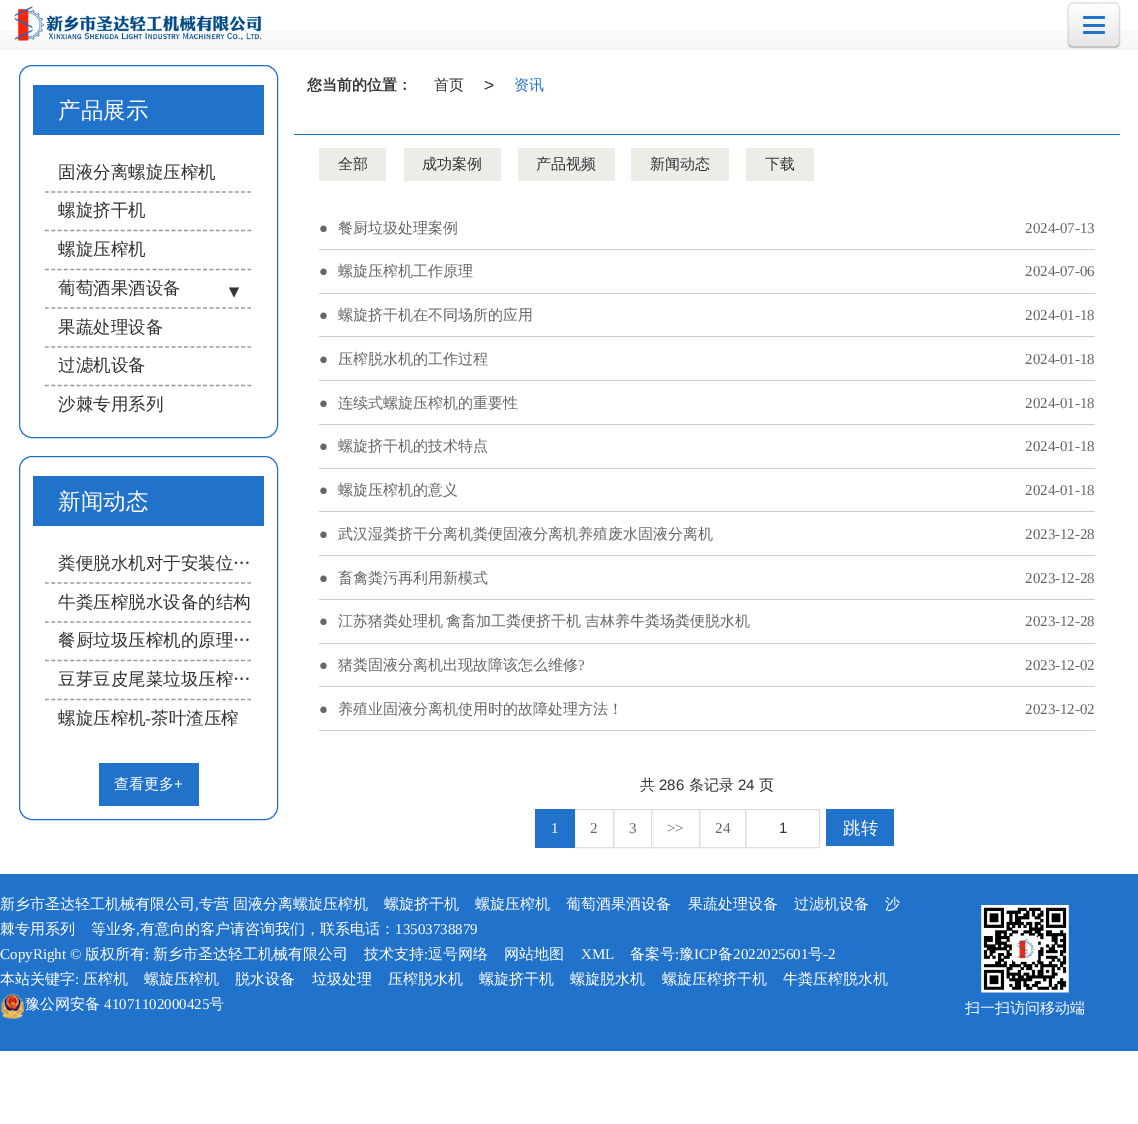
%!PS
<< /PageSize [1138 1124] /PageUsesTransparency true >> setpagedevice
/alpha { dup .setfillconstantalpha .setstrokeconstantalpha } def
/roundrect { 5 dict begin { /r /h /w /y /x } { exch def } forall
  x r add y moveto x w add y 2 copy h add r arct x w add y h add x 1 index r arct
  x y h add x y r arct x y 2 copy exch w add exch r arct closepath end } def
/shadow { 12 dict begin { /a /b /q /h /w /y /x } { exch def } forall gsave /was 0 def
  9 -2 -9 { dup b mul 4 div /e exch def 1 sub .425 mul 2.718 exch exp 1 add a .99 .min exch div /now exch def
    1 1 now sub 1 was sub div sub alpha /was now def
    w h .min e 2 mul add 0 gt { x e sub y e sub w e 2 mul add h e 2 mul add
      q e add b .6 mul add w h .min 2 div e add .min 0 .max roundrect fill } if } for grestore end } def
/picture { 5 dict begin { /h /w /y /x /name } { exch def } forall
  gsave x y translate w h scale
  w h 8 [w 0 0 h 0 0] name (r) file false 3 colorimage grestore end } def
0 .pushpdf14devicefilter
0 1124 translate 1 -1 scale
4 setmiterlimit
1 setgray
0 0 1138 1124 rectfill
(img1.rgb) 0 30 1138 20 picture
(img2.rgb) 14 6 248 35 picture
0 setgray
1068 4 52 45 5 1 0.05 shadow
0.961 setgray
1068 3 52 45 5 roundrect fill
gsave
1068 3 52 45 5 roundrect clip newpath
gsave newpath 1068 4 moveto 1120 4 lineto 1120 46 lineto 1068 46 lineto closepath clip newpath
<< /ShadingType 2 /ColorSpace /DeviceRGB /Coords [1094 3.7 1094 46] /Extend [true true] /Function << /FunctionType 2 /Domain [0 1] /C0 [1 1 1] /C1 [0.902 0.902 0.902] /N 1 >> >> shfill grestore
grestore
0.702 setgray
1.2 setlinewidth
newpath 1118 45.5 moveto 1117.5 46.5 1116 47 1115 47 curveto 1072.5 47 lineto 1071.5 47 1070 46.5 1069.5 45.5 curveto stroke
0.1 alpha
0 setgray
newpath 1069.5 45.5 moveto 1067 43.5 1068 39 1068 36.5 curveto 1068 25 lineto 1068 -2 1064.5 3 1094 3 curveto 1123 3 1119.5 -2 1119.5 25 curveto 1119.5 36.5 lineto 1119.5 39 1120.5 43.5 1118 45.5 curveto stroke
1 alpha
0.125 0.447 0.796 setrgbcolor
1083 16 22 3 1.5 roundrect fill
1083 24 22 3 1.5 roundrect fill
1083 31 22 3 1.5 roundrect fill
1 setlinewidth
19.5 65.5 258 372 12.5 roundrect stroke
33 85 231 50 rectfill
/WenQuanYiZenHei-Medium [22.5 0 0 -22.5 0 0] selectfont
1 setgray
58 118 moveto (产品展示) show
/WenQuanYiZenHei-Medium [17.5 0 0 -17.5 0 0] selectfont
0.2 setgray
58 178 moveto (固液分离螺旋压榨机) show
0.6 setgray
1.2 setlinewidth
[3.75 2.58] 0 setdash
newpath 45 192 moveto 251 192 lineto stroke
0.2 setgray
58 216 moveto (螺旋挤干机) show
0.6 setgray
newpath 45 230.5 moveto 251 230.5 lineto stroke
0.2 setgray
58 255 moveto (螺旋压榨机) show
0.6 setgray
newpath 45 269.5 moveto 251 269.5 lineto stroke
0.2 setgray
58 294 moveto (葡萄酒果酒设备) show
newpath 229 287.5 moveto 239 287.5 lineto 234 297.5 lineto closepath fill
0.6 setgray
newpath 45 308 moveto 251 308 lineto stroke
0.2 setgray
58 333 moveto (果蔬处理设备) show
0.6 setgray
newpath 45 347 moveto 251 347 lineto stroke
0.2 setgray
58 371 moveto (过滤机设备) show
0.6 setgray
newpath 45 385.5 moveto 251 385.5 lineto stroke
0.2 setgray
58 410 moveto (沙棘专用系列) show
0.125 0.447 0.796 setrgbcolor
1 setlinewidth
[] 0 setdash
19.5 456.5 258 363 12.5 roundrect stroke
33 476 231 50 rectfill
/WenQuanYiZenHei-Medium [22.5 0 0 -22.5 0 0] selectfont
1 setgray
58 509 moveto (新闻动态) show
/WenQuanYiZenHei-Medium [17.5 0 0 -17.5 0 0] selectfont
0.2 setgray
58 569 moveto (粪便脱水机对于安装位…) show
0.6 setgray
1.2 setlinewidth
[3.75 2.58] 0 setdash
newpath 45 583 moveto 251 583 lineto stroke
0.2 setgray
58 608 moveto (牛粪压榨脱水设备的结构) show
0.6 setgray
newpath 45 622 moveto 251 622 lineto stroke
0.2 setgray
58 646 moveto (餐厨垃圾压榨机的原理…) show
0.6 setgray
newpath 45 660.5 moveto 251 660.5 lineto stroke
0.2 setgray
58 685 moveto (豆芽豆皮尾菜垃圾压榨…) show
0.6 setgray
newpath 45 699.5 moveto 251 699.5 lineto stroke
0.2 setgray
58 724 moveto (螺旋压榨机) show
/LiberationSerif-Regular [17.5 0 0 -17.5 0 0] selectfont
145 724 moveto (-) show
/WenQuanYiZenHei-Medium [17.5 0 0 -17.5 0 0] selectfont
151 724 moveto (茶叶渣压榨) show
0.125 0.447 0.796 setrgbcolor
99 763 100 43 rectfill
/WenQuanYiZenHei-Medium [15 0 0 -15 0 0] selectfont
1 setgray
114 789 moveto (查看更多) show
/LiberationSans-Regular [15 0 0 -15 0 0] selectfont
174 789 moveto (+) show
0.125 0.447 0.796 setrgbcolor
294 134 826 1 rectfill
/WenQuanYiZenHei-Bold [15 0 0 -15 0 0] selectfont
0.2 setgray
307 90 moveto (您当前的位置：) show
/WenQuanYiZenHei-Medium [15 0 0 -15 0 0] selectfont
434 90 moveto (首页) show
/LiberationSans-Regular [17.5 0 0 -17.5 0 0] selectfont
484 91 moveto (>) show
/WenQuanYiZenHei-Medium [15 0 0 -15 0 0] selectfont
0.125 0.447 0.796 setrgbcolor
514 90 moveto (资讯) show
0.929 0.925 0.906 setrgbcolor
319 148 67 33 rectfill
0.2 setgray
338 169 moveto (全部) show
0.929 0.925 0.906 setrgbcolor
404 148 97 33 rectfill
0.2 setgray
422 169 moveto (成功案例) show
0.929 0.925 0.906 setrgbcolor
518 148 97 33 rectfill
0.2 setgray
536 169 moveto (产品视频) show
0.929 0.925 0.906 setrgbcolor
631 148 98 33 rectfill
0.2 setgray
650 169 moveto (新闻动态) show
0.929 0.925 0.906 setrgbcolor
746 148 68 33 rectfill
0.2 setgray
765 169 moveto (下载) show
0.8 setgray
319 249 776 1 rectfill
/LiberationSerif-Regular [15 0 0 -15 0 0] selectfont
0.4 setgray
319 233 moveto (●) show
/WenQuanYiZenHei-Medium [15 0 0 -15 0 0] selectfont
338 233 moveto (餐厨垃圾处理案例) show
/LiberationSerif-Regular [15 0 0 -15 0 0] selectfont
1025 233 moveto (2024-07-13) show
0.8 setgray
319 293 776 1 rectfill
0.4 setgray
319 276 moveto (●) show
/WenQuanYiZenHei-Medium [15 0 0 -15 0 0] selectfont
338 276 moveto (螺旋压榨机工作原理) show
/LiberationSerif-Regular [15 0 0 -15 0 0] selectfont
1025 276 moveto (2024-07-06) show
0.8 setgray
319 336 776 1 rectfill
0.4 setgray
319 320 moveto (●) show
/WenQuanYiZenHei-Medium [15 0 0 -15 0 0] selectfont
338 320 moveto (螺旋挤干机在不同场所的应用) show
/LiberationSerif-Regular [15 0 0 -15 0 0] selectfont
1025 320 moveto (2024-01-18) show
0.8 setgray
319 380 776 1 rectfill
0.4 setgray
319 364 moveto (●) show
/WenQuanYiZenHei-Medium [15 0 0 -15 0 0] selectfont
338 364 moveto (压榨脱水机的工作过程) show
/LiberationSerif-Regular [15 0 0 -15 0 0] selectfont
1025 364 moveto (2024-01-18) show
0.8 setgray
319 424 776 1 rectfill
0.4 setgray
319 408 moveto (●) show
/WenQuanYiZenHei-Medium [15 0 0 -15 0 0] selectfont
338 408 moveto (连续式螺旋压榨机的重要性) show
/LiberationSerif-Regular [15 0 0 -15 0 0] selectfont
1025 408 moveto (2024-01-18) show
0.8 setgray
319 468 776 1 rectfill
0.4 setgray
319 451 moveto (●) show
/WenQuanYiZenHei-Medium [15 0 0 -15 0 0] selectfont
338 451 moveto (螺旋挤干机的技术特点) show
/LiberationSerif-Regular [15 0 0 -15 0 0] selectfont
1025 451 moveto (2024-01-18) show
0.8 setgray
319 511 776 1 rectfill
0.4 setgray
319 495 moveto (●) show
/WenQuanYiZenHei-Medium [15 0 0 -15 0 0] selectfont
338 495 moveto (螺旋压榨机的意义) show
/LiberationSerif-Regular [15 0 0 -15 0 0] selectfont
1025 495 moveto (2024-01-18) show
0.8 setgray
319 555 776 1 rectfill
0.4 setgray
319 539 moveto (●) show
/WenQuanYiZenHei-Medium [15 0 0 -15 0 0] selectfont
338 539 moveto (武汉湿粪挤干分离机粪便固液分离机养殖废水固液分离机) show
/LiberationSerif-Regular [15 0 0 -15 0 0] selectfont
1025 539 moveto (2023-12-28) show
0.8 setgray
319 599 776 1 rectfill
0.4 setgray
319 583 moveto (●) show
/WenQuanYiZenHei-Medium [15 0 0 -15 0 0] selectfont
338 583 moveto (畜禽粪污再利用新模式) show
/LiberationSerif-Regular [15 0 0 -15 0 0] selectfont
1025 583 moveto (2023-12-28) show
0.8 setgray
319 643 776 1 rectfill
0.4 setgray
319 626 moveto (●) show
/WenQuanYiZenHei-Medium [15 0 0 -15 0 0] selectfont
338 626 moveto -1 0 32 (江苏猪粪处理机 禽畜加工粪便挤干机 吉林养牛粪场粪便脱水机) widthshow
/LiberationSerif-Regular [15 0 0 -15 0 0] selectfont
1025 626 moveto (2023-12-28) show
0.8 setgray
319 686 776 1 rectfill
0.4 setgray
319 670 moveto (●) show
/WenQuanYiZenHei-Medium [15 0 0 -15 0 0] selectfont
338 670 moveto (猪粪固液分离机出现故障该怎么维修) show
/LiberationSerif-Regular [15 0 0 -15 0 0] selectfont
578 670 moveto (?) show
1025 670 moveto (2023-12-02) show
0.8 setgray
319 730 776 1 rectfill
0.4 setgray
319 714 moveto (●) show
/WenQuanYiZenHei-Medium [15 0 0 -15 0 0] selectfont
338 714 moveto (养殖业固液分离机使用时的故障处理方法！) show
/LiberationSerif-Regular [15 0 0 -15 0 0] selectfont
1025 714 moveto (2023-12-02) show
/WenQuanYiZenHei-Medium [15 0 0 -15 0 0] selectfont
0.2 setgray
640 790 moveto (共) show
/LiberationSans-Regular [15 0 0 -15 0 0] selectfont
659 790 moveto (286) show
/WenQuanYiZenHei-Medium [15 0 0 -15 0 0] selectfont
689 790 moveto (条记录) show
/LiberationSans-Regular [15 0 0 -15 0 0] selectfont
738 790 moveto (24) show
/WenQuanYiZenHei-Medium [15 0 0 -15 0 0] selectfont
759 790 moveto (页) show
0.867 setgray
1 setlinewidth
[] 0 setdash
574.5 809.5 39 38 rectstroke
0.125 0.447 0.796 setrgbcolor
535 809 40 39 rectfill
/LiberationSerif-Regular [15 0 0 -15 0 0] selectfont
1 setgray
551 833 moveto (1) show
0.4 setgray
590 833 moveto (2) show
0.867 setgray
613.5 809.5 39 38 rectstroke
0.4 setgray
629 833 moveto (3) show
1 setgray
652 810 1 37 rectfill
0.867 setgray
651.5 809.5 48 38 rectstroke
0.4 setgray
667 833 moveto (>>) show
0.867 setgray
745.5 809.5 74 38 rectstroke
699.5 809.5 46 38 rectstroke
0.4 setgray
715 833 moveto (24) show
/LiberationSans-Regular [15 0 0 -15 0 0] selectfont
0.2 setgray
779 833 moveto (1) show
0.125 0.447 0.796 setrgbcolor
826 809 68 37 rectfill
/WenQuanYiZenHei-Medium [17.5 0 0 -17.5 0 0] selectfont
1 setgray
843 834 moveto (跳转) show
0.125 0.447 0.796 setrgbcolor
0 874 1138 177 rectfill
/WenQuanYiZenHei-Medium [15 0 0 -15 0 0] selectfont
1 setgray
0 909 moveto (新乡市圣达轻工机械有限公司) show
/LiberationSerif-Regular [15 0 0 -15 0 0] selectfont
195 909 moveto (,) show
/WenQuanYiZenHei-Medium [15 0 0 -15 0 0] selectfont
199 909 moveto (专营) show
233 909 moveto (固液分离螺旋压榨机) show
384 909 moveto (螺旋挤干机) show
475 909 moveto (螺旋压榨机) show
566 909 moveto (葡萄酒果酒设备) show
688 909 moveto (果蔬处理设备) show
794 909 moveto (过滤机设备) show
885 909 moveto (沙) show
0 934 moveto (棘专用系列) show
91 934 moveto (等业务) show
/LiberationSerif-Regular [15 0 0 -15 0 0] selectfont
136 934 moveto (,) show
/WenQuanYiZenHei-Medium [15 0 0 -15 0 0] selectfont
140 934 moveto (有意向的客户请咨询我们，联系电话：) show
/LiberationSerif-Regular [15 0 0 -15 0 0] selectfont
395 934 moveto (13503738879) show
0 959 moveto (CopyRight ©) show
/WenQuanYiZenHei-Medium [15 0 0 -15 0 0] selectfont
85 959 moveto (版权所有) show
/LiberationSerif-Regular [15 0 0 -15 0 0] selectfont
145 959 moveto (:) show
/WenQuanYiZenHei-Medium [15 0 0 -15 0 0] selectfont
153 959 moveto (新乡市圣达轻工机械有限公司) show
364 959 moveto (技术支持) show
/LiberationSerif-Regular [15 0 0 -15 0 0] selectfont
424 959 moveto (:) show
/WenQuanYiZenHei-Medium [15 0 0 -15 0 0] selectfont
428 959 moveto (逗号网络) show
504 959 moveto (网站地图) show
/LiberationSerif-Regular [15 0 0 -15 0 0] selectfont
581 959 moveto (XML) show
/WenQuanYiZenHei-Medium [15 0 0 -15 0 0] selectfont
630 959 moveto (备案号) show
/LiberationSerif-Regular [15 0 0 -15 0 0] selectfont
675 959 moveto (:) show
/WenQuanYiZenHei-Medium [15 0 0 -15 0 0] selectfont
679 959 moveto (豫) show
/LiberationSerif-Regular [15 0 0 -15 0 0] selectfont
694 959 moveto (ICP) show
/WenQuanYiZenHei-Medium [15 0 0 -15 0 0] selectfont
718 959 moveto (备) show
/LiberationSerif-Regular [15 0 0 -15 0 0] selectfont
733 959 moveto (2022025601) show
/WenQuanYiZenHei-Medium [15 0 0 -15 0 0] selectfont
808 959 moveto (号) show
/LiberationSerif-Regular [15 0 0 -15 0 0] selectfont
823 959 moveto (-2) show
/WenQuanYiZenHei-Medium [15 0 0 -15 0 0] selectfont
0 984 moveto (本站关键字) show
/LiberationSerif-Regular [15 0 0 -15 0 0] selectfont
75 984 moveto (:) show
/WenQuanYiZenHei-Medium [15 0 0 -15 0 0] selectfont
83 984 moveto (压榨机) show
144 984 moveto (螺旋压榨机) show
235 984 moveto (脱水设备) show
312 984 moveto (垃圾处理) show
388 984 moveto (压榨脱水机) show
479 984 moveto (螺旋挤干机) show
570 984 moveto (螺旋脱水机) show
662 984 moveto (螺旋压榨挤干机) show
783 984 moveto (牛粪压榨脱水机) show
(img3.rgb) 1 993 23 26 picture
25 1009 moveto (豫公网安备) show
/LiberationSerif-Regular [15 0 0 -15 0 0] selectfont
104 1009 moveto (41071102000425) show
/WenQuanYiZenHei-Medium [15 0 0 -15 0 0] selectfont
209 1009 moveto (号) show
(img4.rgb) 981 905 88 88 picture
965 1013 moveto (扫一扫访问移动端) show
.poppdf14devicefilter showpage
